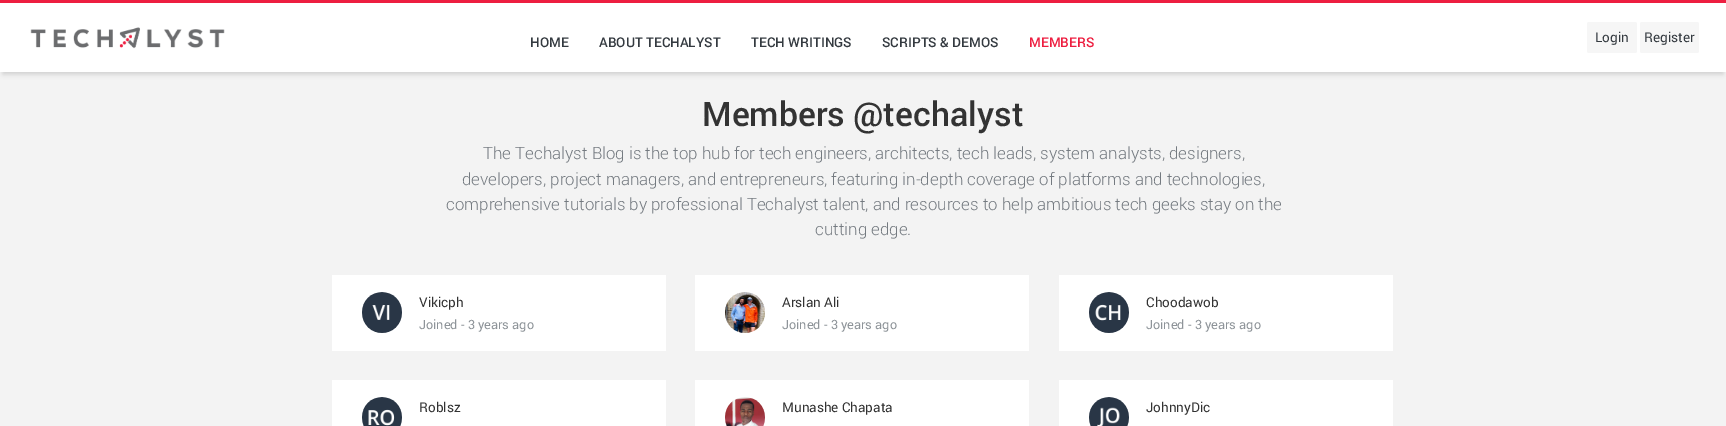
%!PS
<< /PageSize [1726 426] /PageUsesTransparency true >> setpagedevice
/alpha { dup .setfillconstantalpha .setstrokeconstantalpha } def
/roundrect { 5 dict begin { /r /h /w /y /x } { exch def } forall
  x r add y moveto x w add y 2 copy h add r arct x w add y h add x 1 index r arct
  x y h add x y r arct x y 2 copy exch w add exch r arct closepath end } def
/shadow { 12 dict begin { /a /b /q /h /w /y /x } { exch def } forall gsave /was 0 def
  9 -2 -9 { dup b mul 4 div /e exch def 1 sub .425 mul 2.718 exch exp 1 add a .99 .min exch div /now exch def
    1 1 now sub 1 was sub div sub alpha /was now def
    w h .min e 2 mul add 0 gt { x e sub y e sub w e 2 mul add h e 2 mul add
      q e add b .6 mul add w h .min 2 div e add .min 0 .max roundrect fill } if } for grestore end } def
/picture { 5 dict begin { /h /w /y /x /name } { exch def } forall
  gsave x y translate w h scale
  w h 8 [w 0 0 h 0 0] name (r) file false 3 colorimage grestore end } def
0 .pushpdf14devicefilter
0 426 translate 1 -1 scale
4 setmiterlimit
0.953 setgray
0 0 1726 426 rectfill
0 setgray
3 8 1720 66 0 2.5 0.15 shadow
1 setgray
0 3 1726 69 rectfill
0.929 0.118 0.251 setrgbcolor
0 0 1726 3 rectfill
(img1.rgb) 30 27 195 22 picture
/Roboto-Medium [13.5 0 0 -13.5 0 0] selectfont
0.204 0.227 0.251 setrgbcolor
530 47 moveto (HOME) show
599 47 moveto (ABOUT TECHALYST) show
751 47 moveto (TECH WRITINGS) show
882 47 moveto (SCRIPTS & DEMOS) show
0.929 0.118 0.251 setrgbcolor
1029 47 moveto (MEMBERS) show
0.965 setgray
1587 22 50 31 2 roundrect fill
/Roboto-Regular [13.5 0 0 -13.5 0 0] selectfont
0.204 0.227 0.251 setrgbcolor
1595 42 moveto (Login) show
0.965 setgray
1640 22 59 31 2 roundrect fill
0.204 0.227 0.251 setrgbcolor
1644 42 moveto (Register) show
/Roboto-Medium [33.75 0 0 -33.75 0 0] selectfont
0.2 setgray
702 126 moveto (Members @techalyst) show
/Roboto-Light [16.9 0 0 -16.9 0 0] selectfont
0.455 0.478 0.502 setrgbcolor
483 159 moveto (The Techalyst Blog is the top hub for tech engineers, architects, tech leads, system analysts, designers,) show
462 185 moveto (developers, project managers, and entrepreneurs, featuring in-depth coverage of platforms and technologies,) show
446 210 moveto (comprehensive tutorials by professional Techalyst talent, and resources to help ambitious tech geeks stay on the) show
815 235 moveto (cutting edge.) show
1 setgray
332 275 334 76 rectfill
(img2.rgb) 362 292 40 41 picture
/Roboto-Regular [13.5 0 0 -13.5 0 0] selectfont
0.2 setgray
419 307 moveto (Vikicph) show
/Roboto-Regular [12.75 0 0 -12.75 0 0] selectfont
0.557 0.58 0.6 setrgbcolor
419 329 moveto (Joined - 3 years ago) show
1 setgray
695 275 334 76 rectfill
(img3.rgb) 725 292 40 41 picture
/Roboto-Regular [13.5 0 0 -13.5 0 0] selectfont
0.2 setgray
782 307 moveto (Arslan Ali) show
/Roboto-Regular [12.75 0 0 -12.75 0 0] selectfont
0.557 0.58 0.6 setrgbcolor
782 329 moveto (Joined - 3 years ago) show
1 setgray
1059 275 334 76 rectfill
(img4.rgb) 1089 292 40 41 picture
/Roboto-Regular [13.5 0 0 -13.5 0 0] selectfont
0.2 setgray
1146 307 moveto (Choodawob) show
/Roboto-Regular [12.75 0 0 -12.75 0 0] selectfont
0.557 0.58 0.6 setrgbcolor
1146 329 moveto (Joined - 3 years ago) show
1 setgray
332 380 334 46 rectfill
(img5.rgb) 362 397 40 29 picture
/Roboto-Regular [13.5 0 0 -13.5 0 0] selectfont
0.2 setgray
419 412 moveto (Roblsz) show
1 setgray
695 380 334 46 rectfill
(img6.rgb) 725 397 40 29 picture
0.2 setgray
782 412 moveto (Munashe Chapata) show
1 setgray
1059 380 334 46 rectfill
(img7.rgb) 1089 397 40 29 picture
0.2 setgray
1146 412 moveto (JohnnyDic) show
.poppdf14devicefilter showpage
